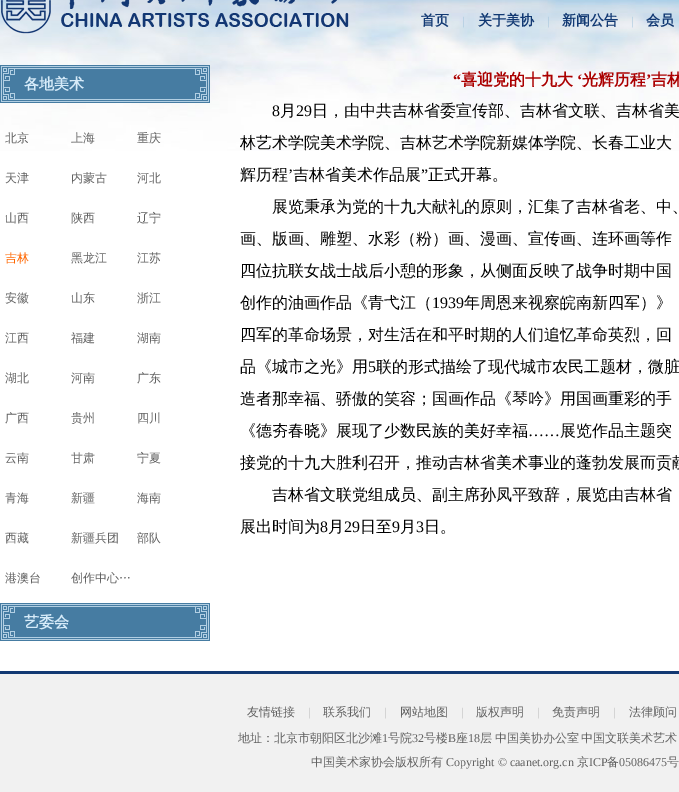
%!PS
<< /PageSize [679 792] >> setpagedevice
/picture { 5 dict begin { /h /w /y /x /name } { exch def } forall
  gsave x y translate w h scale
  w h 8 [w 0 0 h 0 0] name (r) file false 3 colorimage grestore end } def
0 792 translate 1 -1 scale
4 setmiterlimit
1 setgray
0 0 679 792 rectfill
(img1.rgb) 0 0 679 151 picture
(img2.rgb) 1 0 348 34 picture
/WenQuanYiZenHei-Bold [14 0 0 -14 0 0] selectfont
0.071 0.224 0.451 setrgbcolor
421 25 moveto (首页) show
/LiberationSerif-Regular [12 0 0 -12 0 0] selectfont
0.639 0.773 0.867 setrgbcolor
462 25 moveto (|) show
/WenQuanYiZenHei-Bold [14 0 0 -14 0 0] selectfont
0.071 0.224 0.451 setrgbcolor
478 25 moveto (关于美协) show
/LiberationSerif-Regular [12 0 0 -12 0 0] selectfont
0.639 0.773 0.867 setrgbcolor
547 25 moveto (|) show
/WenQuanYiZenHei-Bold [14 0 0 -14 0 0] selectfont
0.071 0.224 0.451 setrgbcolor
562 25 moveto (新闻公告) show
/LiberationSerif-Regular [12 0 0 -12 0 0] selectfont
0.639 0.773 0.867 setrgbcolor
631 25 moveto (|) show
/WenQuanYiZenHei-Bold [14 0 0 -14 0 0] selectfont
0.071 0.224 0.451 setrgbcolor
646 25 moveto (会员) show
(img3.rgb) 0 65 210 38 picture
/WenQuanYiZenHei-Bold [15 0 0 -15 0 0] selectfont
0.839 0.922 0.976 setrgbcolor
24 89 moveto (各地美术) show
/WenQuanYiZenHei-Medium [12 0 0 -12 0 0] selectfont
0.384 setgray
5 142 moveto (北京) show
71 142 moveto (上海) show
137 142 moveto (重庆) show
5 182 moveto (天津) show
71 182 moveto (内蒙古) show
137 182 moveto (河北) show
5 222 moveto (山西) show
71 222 moveto (陕西) show
137 222 moveto (辽宁) show
1 0.4 0 setrgbcolor
5 262 moveto (吉林) show
0.384 setgray
71 262 moveto (黑龙江) show
137 262 moveto (江苏) show
5 302 moveto (安徽) show
71 302 moveto (山东) show
137 302 moveto (浙江) show
5 342 moveto (江西) show
71 342 moveto (福建) show
137 342 moveto (湖南) show
5 382 moveto (湖北) show
71 382 moveto (河南) show
137 382 moveto (广东) show
5 422 moveto (广西) show
71 422 moveto (贵州) show
137 422 moveto (四川) show
5 462 moveto (云南) show
71 462 moveto (甘肃) show
137 462 moveto (宁夏) show
5 502 moveto (青海) show
71 502 moveto (新疆) show
137 502 moveto (海南) show
5 542 moveto (西藏) show
71 542 moveto (新疆兵团) show
137 542 moveto (部队) show
5 582 moveto (港澳台) show
71 582 moveto (创作中心…) show
(img3.rgb) 0 603 210 38 picture
/WenQuanYiZenHei-Bold [15 0 0 -15 0 0] selectfont
0.839 0.922 0.976 setrgbcolor
24 627 moveto (艺委会) show
/LiberationSerif-Bold [16 0 0 -16 0 0] selectfont
0.671 0 0 setrgbcolor
453 85 moveto (“) show
/WenQuanYiZenHei-Bold [16 0 0 -16 0 0] selectfont
461 85 moveto (喜迎党的十九大) show
/LiberationSerif-Bold [16 0 0 -16 0 0] selectfont
577 85 moveto (‘) show
/WenQuanYiZenHei-Bold [16 0 0 -16 0 0] selectfont
582 85 moveto (光辉历程) show
/LiberationSerif-Bold [16 0 0 -16 0 0] selectfont
646 85 moveto (’) show
/WenQuanYiZenHei-Bold [16 0 0 -16 0 0] selectfont
651 85 moveto (吉林) show
/LiberationSerif-Regular [16 0 0 -16 0 0] selectfont
0 setgray
272 116 moveto (8) show
/WenQuanYiZenHei-Medium [16 0 0 -16 0 0] selectfont
280 116 moveto (月) show
/LiberationSerif-Regular [16 0 0 -16 0 0] selectfont
296 116 moveto (29) show
/WenQuanYiZenHei-Medium [16 0 0 -16 0 0] selectfont
312 116 moveto (日，由中共吉林省委宣传部、吉林省文联、吉林省美) show
240 148 moveto (林艺术学院美术学院、吉林艺术学院新媒体学院、长春工业大) show
240 180 moveto (辉历程) show
/LiberationSerif-Regular [16 0 0 -16 0 0] selectfont
288 180 moveto (’) show
/WenQuanYiZenHei-Medium [16 0 0 -16 0 0] selectfont
293 180 moveto (吉林省美术作品展) show
/LiberationSerif-Regular [16 0 0 -16 0 0] selectfont
421 180 moveto (”) show
/WenQuanYiZenHei-Medium [16 0 0 -16 0 0] selectfont
428 180 moveto (正式开幕。) show
272 212 moveto (展览秉承为党的十九大献礼的原则，汇集了吉林省老、中、) show
240 244 moveto (画、版画、雕塑、水彩（粉）画、漫画、宣传画、连环画等作) show
240 276 moveto (四位抗联女战士战后小憩的形象，从侧面反映了战争时期中国) show
240 308 moveto (创作的油画作品《青弋江（) show
/LiberationSerif-Regular [16 0 0 -16 0 0] selectfont
432 308 moveto (1939) show
/WenQuanYiZenHei-Medium [16 0 0 -16 0 0] selectfont
464 308 moveto (年周恩来视察皖南新四军）》) show
240 340 moveto (四军的革命场景，对生活在和平时期的人们追忆革命英烈，回) show
240 372 moveto (品《城市之光》用) show
/LiberationSerif-Regular [16 0 0 -16 0 0] selectfont
368 372 moveto (5) show
/WenQuanYiZenHei-Medium [16 0 0 -16 0 0] selectfont
376 372 moveto (联的形式描绘了现代城市农民工题材，微脏) show
240 404 moveto (造者那幸福、骄傲的笑容；国画作品《琴吟》用国画重彩的手) show
240 436 moveto (《德夯春晓》展现了少数民族的美好幸福) show
/LiberationSerif-Regular [16 0 0 -16 0 0] selectfont
528 436 moveto (……) show
/WenQuanYiZenHei-Medium [16 0 0 -16 0 0] selectfont
560 436 moveto (展览作品主题突) show
240 468 moveto (接党的十九大胜利召开，推动吉林省美术事业的蓬勃发展而贡献) show
272 500 moveto (吉林省文联党组成员、副主席孙凤平致辞，展览由吉林省) show
240 532 moveto (展出时间为) show
/LiberationSerif-Regular [16 0 0 -16 0 0] selectfont
320 532 moveto (8) show
/WenQuanYiZenHei-Medium [16 0 0 -16 0 0] selectfont
328 532 moveto (月) show
/LiberationSerif-Regular [16 0 0 -16 0 0] selectfont
344 532 moveto (29) show
/WenQuanYiZenHei-Medium [16 0 0 -16 0 0] selectfont
360 532 moveto (日至) show
/LiberationSerif-Regular [16 0 0 -16 0 0] selectfont
392 532 moveto (9) show
/WenQuanYiZenHei-Medium [16 0 0 -16 0 0] selectfont
400 532 moveto (月) show
/LiberationSerif-Regular [16 0 0 -16 0 0] selectfont
416 532 moveto (3) show
/WenQuanYiZenHei-Medium [16 0 0 -16 0 0] selectfont
424 532 moveto (日。) show
0.945 setgray
0 674 679 118 rectfill
0.071 0.224 0.451 setrgbcolor
0 671 679 3 rectfill
/WenQuanYiZenHei-Medium [12 0 0 -12 0 0] selectfont
0.384 setgray
247 716 moveto (友情链接) show
/LiberationSerif-Regular [12 0 0 -12 0 0] selectfont
0.733 setgray
308 716 moveto (|) show
/WenQuanYiZenHei-Medium [12 0 0 -12 0 0] selectfont
0.384 setgray
323 716 moveto (联系我们) show
/LiberationSerif-Regular [12 0 0 -12 0 0] selectfont
0.733 setgray
384 716 moveto (|) show
/WenQuanYiZenHei-Medium [12 0 0 -12 0 0] selectfont
0.384 setgray
400 716 moveto (网站地图) show
/LiberationSerif-Regular [12 0 0 -12 0 0] selectfont
0.733 setgray
461 716 moveto (|) show
/WenQuanYiZenHei-Medium [12 0 0 -12 0 0] selectfont
0.384 setgray
476 716 moveto (版权声明) show
/LiberationSerif-Regular [12 0 0 -12 0 0] selectfont
0.733 setgray
537 716 moveto (|) show
/WenQuanYiZenHei-Medium [12 0 0 -12 0 0] selectfont
0.384 setgray
552 716 moveto (免责声明) show
/LiberationSerif-Regular [12 0 0 -12 0 0] selectfont
0.733 setgray
613 716 moveto (|) show
/WenQuanYiZenHei-Medium [12 0 0 -12 0 0] selectfont
0.384 setgray
629 716 moveto (法律顾问) show
238 742 moveto (地址：北京市朝阳区北沙滩) show
/LiberationSerif-Regular [12 0 0 -12 0 0] selectfont
382 742 moveto (1) show
/WenQuanYiZenHei-Medium [12 0 0 -12 0 0] selectfont
388 742 moveto (号院) show
/LiberationSerif-Regular [12 0 0 -12 0 0] selectfont
412 742 moveto (32) show
/WenQuanYiZenHei-Medium [12 0 0 -12 0 0] selectfont
424 742 moveto (号楼) show
/LiberationSerif-Regular [12 0 0 -12 0 0] selectfont
448 742 moveto (B) show
/WenQuanYiZenHei-Medium [12 0 0 -12 0 0] selectfont
456 742 moveto (座) show
/LiberationSerif-Regular [12 0 0 -12 0 0] selectfont
468 742 moveto (18) show
/WenQuanYiZenHei-Medium [12 0 0 -12 0 0] selectfont
480 742 moveto -1 0 32 (层 中国美协办公室 中国文联美术艺术) widthshow
311 766 moveto (中国美术家协会版权所有) show
/LiberationSerif-Regular [12 0 0 -12 0 0] selectfont
446 766 moveto (Copyright © caanet.org.cn) show
/WenQuanYiZenHei-Medium [12 0 0 -12 0 0] selectfont
577 766 moveto (京) show
/LiberationSerif-Regular [12 0 0 -12 0 0] selectfont
589 766 moveto (ICP) show
/WenQuanYiZenHei-Medium [12 0 0 -12 0 0] selectfont
607 766 moveto (备) show
/LiberationSerif-Regular [12 0 0 -12 0 0] selectfont
619 766 moveto (05086475) show
/WenQuanYiZenHei-Medium [12 0 0 -12 0 0] selectfont
667 766 moveto (号) show
showpage
